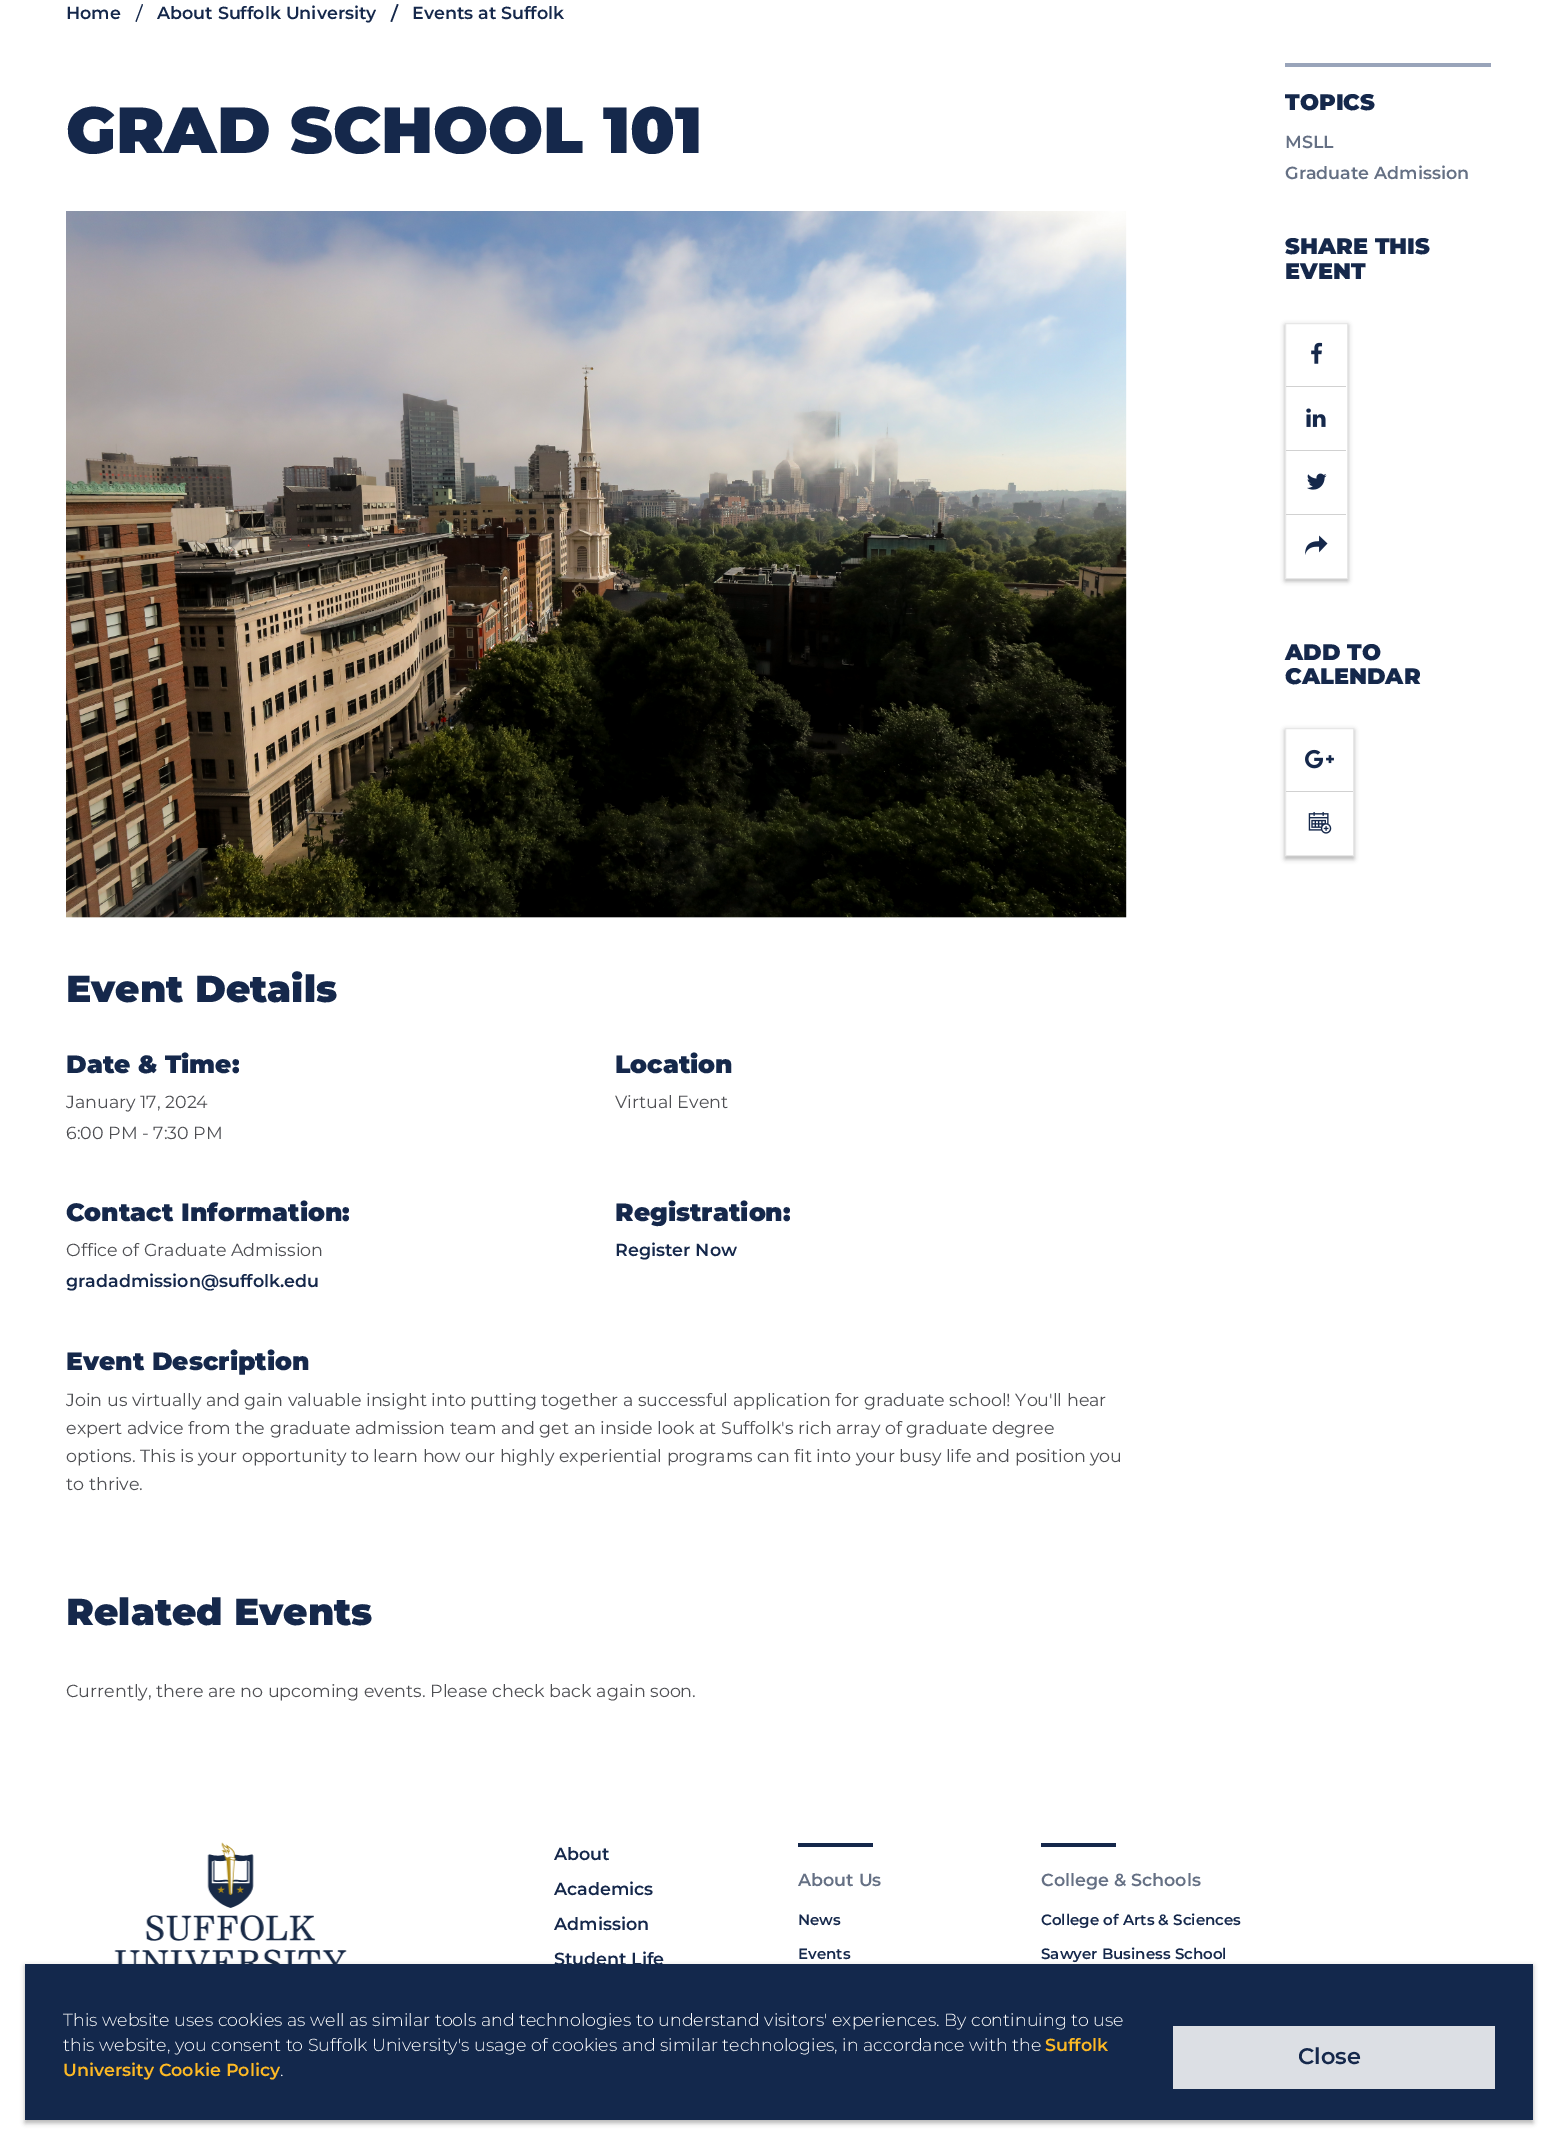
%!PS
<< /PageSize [1557 2145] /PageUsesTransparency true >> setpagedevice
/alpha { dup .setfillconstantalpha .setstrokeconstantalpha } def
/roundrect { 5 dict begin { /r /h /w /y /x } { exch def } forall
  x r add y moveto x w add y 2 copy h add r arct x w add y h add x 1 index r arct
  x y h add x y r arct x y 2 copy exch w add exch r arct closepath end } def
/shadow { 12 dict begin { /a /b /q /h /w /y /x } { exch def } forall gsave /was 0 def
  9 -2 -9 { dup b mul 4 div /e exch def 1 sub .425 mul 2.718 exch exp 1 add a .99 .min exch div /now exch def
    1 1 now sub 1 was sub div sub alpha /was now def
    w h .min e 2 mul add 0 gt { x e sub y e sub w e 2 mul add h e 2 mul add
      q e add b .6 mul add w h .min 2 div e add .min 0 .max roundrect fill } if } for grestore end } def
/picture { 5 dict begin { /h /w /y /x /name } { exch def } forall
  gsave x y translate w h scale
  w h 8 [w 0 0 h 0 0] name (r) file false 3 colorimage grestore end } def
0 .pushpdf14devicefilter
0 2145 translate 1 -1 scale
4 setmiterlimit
1 setgray
0 0 1557 2145 rectfill
/Montserrat-SemiBold [17.5 0 0 -17.5 0 0] selectfont
0.082 0.157 0.294 setrgbcolor
66 19 moveto (Home) show
newpath 142 4 moveto 143 4.5 lineto 136.5 22 lineto 135.5 21.5 lineto closepath fill
157 19 moveto (About Suffolk University) show
newpath 397 4 moveto 398.5 4.5 lineto 392 22 lineto 390.5 21.5 lineto closepath fill
412 19 moveto (Events at Suffolk) show
/Montserrat-Black [65 0 0 -65 0 0] selectfont
66 153 moveto (GRAD SCHOOL 101) show
(img1.rgb) 66 211 1061 707 picture
/Montserrat-Black [37.5 0 0 -37.5 0 0] selectfont
66 1002 moveto (Event Details) show
/Montserrat-Black [25 0 0 -25 0 0] selectfont
66 1073 moveto (Date & Time:) show
/Montserrat-Regular [17.5 0 0 -17.5 0 0] selectfont
0.306 0.31 0.325 setrgbcolor
66 1108 moveto (January 17, 2024) show
66 1139 moveto (6:00 PM - 7:30 PM) show
/Montserrat-Black [25 0 0 -25 0 0] selectfont
0.082 0.157 0.294 setrgbcolor
615 1073 moveto (Location) show
/Montserrat-Regular [17.5 0 0 -17.5 0 0] selectfont
0.306 0.31 0.325 setrgbcolor
615 1108 moveto (Virtual Event) show
/Montserrat-Black [25 0 0 -25 0 0] selectfont
0.082 0.157 0.294 setrgbcolor
66 1221 moveto (Contact Information:) show
/Montserrat-Regular [17.5 0 0 -17.5 0 0] selectfont
0.306 0.31 0.325 setrgbcolor
66 1256 moveto (Office of Graduate Admission) show
/Montserrat-SemiBold [17.5 0 0 -17.5 0 0] selectfont
0.082 0.157 0.294 setrgbcolor
66 1287 moveto (gradadmission@suffolk.edu) show
/Montserrat-Black [25 0 0 -25 0 0] selectfont
615 1221 moveto (Registration:) show
/Montserrat-SemiBold [17.5 0 0 -17.5 0 0] selectfont
615 1256 moveto (Register Now) show
/Montserrat-Black [25 0 0 -25 0 0] selectfont
66 1370 moveto (Event Description) show
/Montserrat-Regular [17.5 0 0 -17.5 0 0] selectfont
0.306 0.31 0.325 setrgbcolor
66 1406 moveto (Join us virtually and gain valuable insight into putting together a successful application for graduate school! You'll hear) show
66 1434 moveto (expert advice from the graduate admission team and get an inside look at Suffolk's rich array of graduate degree) show
66 1462 moveto (options. This is your opportunity to learn how our highly experiential programs can fit into your busy life and position you) show
66 1490 moveto (to thrive.) show
/Montserrat-Black [37.5 0 0 -37.5 0 0] selectfont
0.082 0.157 0.294 setrgbcolor
66 1625 moveto (Related Events) show
/Montserrat-Regular [17.5 0 0 -17.5 0 0] selectfont
0.306 0.31 0.325 setrgbcolor
66 1697 moveto (Currently, there are no upcoming events. Please check back again soon.) show
0.6 0.643 0.729 setrgbcolor
1285 63 206 4 rectfill
/Montserrat-Black [22.5 0 0 -22.5 0 0] selectfont
0.082 0.157 0.294 setrgbcolor
1285 110 moveto (TOPICS) show
/Montserrat-SemiBold [17.5 0 0 -17.5 0 0] selectfont
0.396 0.439 0.518 setrgbcolor
1285 148 moveto (MSLL) show
1285 179 moveto (Graduate Admission) show
/Montserrat-Black [22.5 0 0 -22.5 0 0] selectfont
0.082 0.157 0.294 setrgbcolor
1285 254 moveto (SHARE THIS) show
1285 279 moveto (EVENT) show
0 setgray
1285 325 63 256 0 2.5 0.3 shadow
1 setgray
newpath 1285.5 323.5 moveto 1347.5 323.5 lineto 1347.5 578.5 lineto 1285.5 578.5 lineto closepath gsave fill grestore
0.906 setgray
stroke
(img2.rgb) 1311 342 12 22 picture
0.82 setgray
1286 386 60 1 rectfill
(img3.rgb) 1306 408 20 19 picture
1286 450 60 1 rectfill
(img4.rgb) 1307 473 20 17 picture
1286 514 60 1 rectfill
(img5.rgb) 1305 535 23 20 picture
0.082 0.157 0.294 setrgbcolor
1285 660 moveto (ADD TO) show
1285 684 moveto (CALENDAR) show
0 setgray
1285 730 69 129 0 2.5 0.3 shadow
1 setgray
newpath 1285.5 728.5 moveto 1353.5 728.5 lineto 1353.5 855.5 lineto 1285.5 855.5 lineto closepath gsave fill grestore
0.906 setgray
stroke
(img6.rgb) 1305 749 29 20 picture
0.82 setgray
1286 791 67 1 rectfill
(img7.rgb) 1308 812 24 22 picture
(img8.rgb) 114 1842 233 122 picture
/Montserrat-SemiBold [17.5 0 0 -17.5 0 0] selectfont
0.082 0.157 0.294 setrgbcolor
554 1860 moveto (About) show
554 1895 moveto (Academics) show
554 1930 moveto (Admission) show
554 1965 moveto (Student Life) show
798 1843 75 4 rectfill
0.396 0.439 0.518 setrgbcolor
798 1886 moveto (About Us) show
/Montserrat-SemiBold [15 0 0 -15 0 0] selectfont
0.082 0.157 0.294 setrgbcolor
798 1925 moveto (News) show
798 1959 moveto (Events) show
1041 1843 75 4 rectfill
/Montserrat-SemiBold [17.5 0 0 -17.5 0 0] selectfont
0.396 0.439 0.518 setrgbcolor
1041 1886 moveto (College & Schools) show
/Montserrat-SemiBold [15 0 0 -15 0 0] selectfont
0.082 0.157 0.294 setrgbcolor
1041 1925 moveto (College of Arts & Sciences) show
1041 1959 moveto (Sawyer Business School) show
0 setgray
25 1966 1508 157 0 2.5 0.3 shadow
0.075 0.157 0.298 setrgbcolor
25 1964 1508 156 rectfill
/Montserrat-Light [17.5 0 0 -17.5 0 0] selectfont
1 setgray
63 2026 moveto (This website uses cookies as well as similar tools and technologies to understand visitors' experiences. By continuing to use) show
63 2051 moveto (this website, you consent to Suffolk University's usage of cookies and similar technologies, in accordance with the) show
/Montserrat-SemiBold [17.5 0 0 -17.5 0 0] selectfont
0.992 0.725 0.141 setrgbcolor
1045 2051 moveto (Suffolk) show
63 2076 moveto (University Cookie Policy) show
/Montserrat-Light [17.5 0 0 -17.5 0 0] selectfont
1 setgray
280 2076 moveto (.) show
0.863 0.875 0.894 setrgbcolor
1173 2026 322 63 rectfill
/Montserrat-SemiBold [22.5 0 0 -22.5 0 0] selectfont
0.082 0.157 0.294 setrgbcolor
1298 2064 moveto (Close) show
.poppdf14devicefilter showpage
